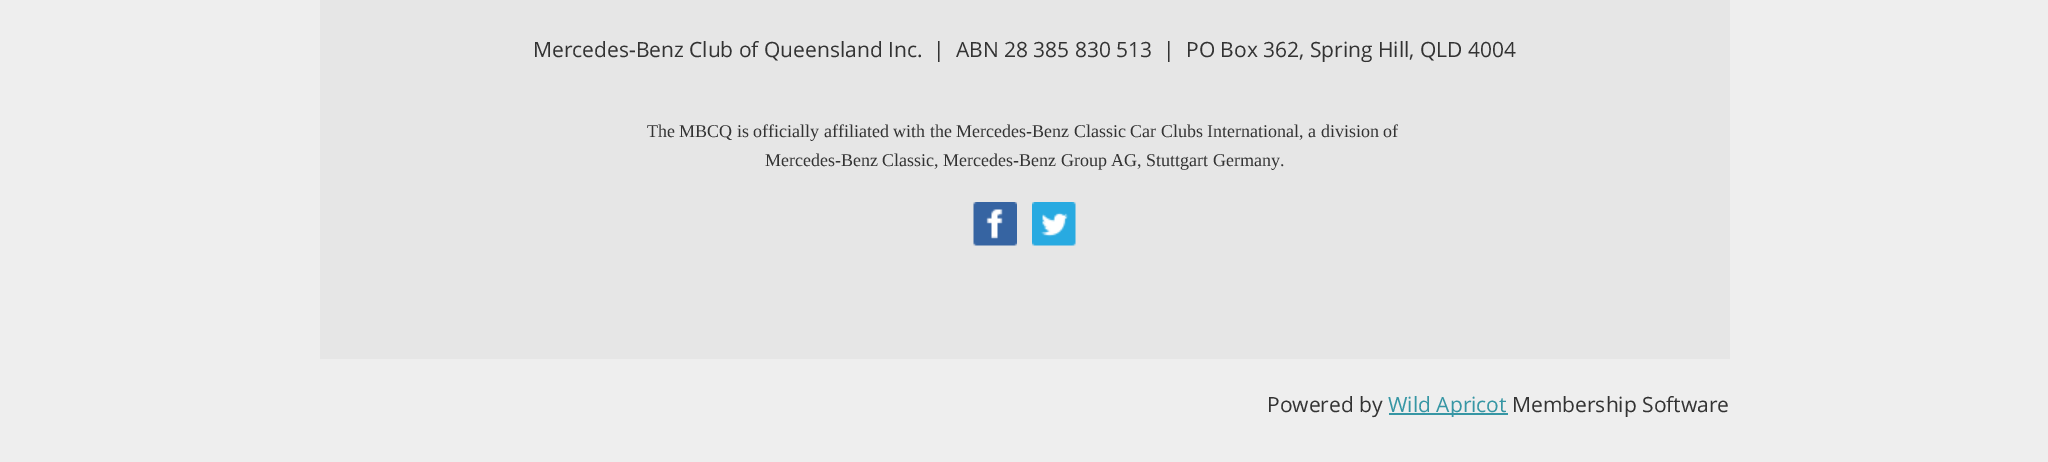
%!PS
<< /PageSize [2048 462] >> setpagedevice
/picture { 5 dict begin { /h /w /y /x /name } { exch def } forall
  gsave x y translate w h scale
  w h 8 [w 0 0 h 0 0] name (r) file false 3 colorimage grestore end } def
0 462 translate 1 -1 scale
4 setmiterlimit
0.933 setgray
0 0 2048 462 rectfill
0.902 setgray
320 0 1410 359 rectfill
/OpenSans-Regular [21 0 0 -21 0 0] selectfont
0.2 setgray
533 57 moveto (Mercedes-Benz Club of Queensland Inc.  |  ABN 28 385 830 513  |) show
1186 57 moveto (PO Box 362, Spring Hill, QLD 4004) show
/LiberationSerif-Regular [18 0 0 -18 0 0] selectfont
647 137 moveto (The MBCQ is officially affiliated with the Mercedes-Benz Classic Car Clubs International, a division of) show
765 166 moveto (Mercedes-Benz Classic, Mercedes-Benz Group AG, Stuttgart Germany.) show
(img1.rgb) 973 202 44 44 picture
(img2.rgb) 1032 202 44 44 picture
/OpenSans-Regular [21 0 0 -21 0 0] selectfont
1267 412 moveto (Powered by) show
0.212 0.588 0.643 setrgbcolor
1389 413 119 2 rectfill
1388 412 moveto (Wild Apricot) show
0.2 setgray
1512 412 moveto (Membership Software) show
showpage
